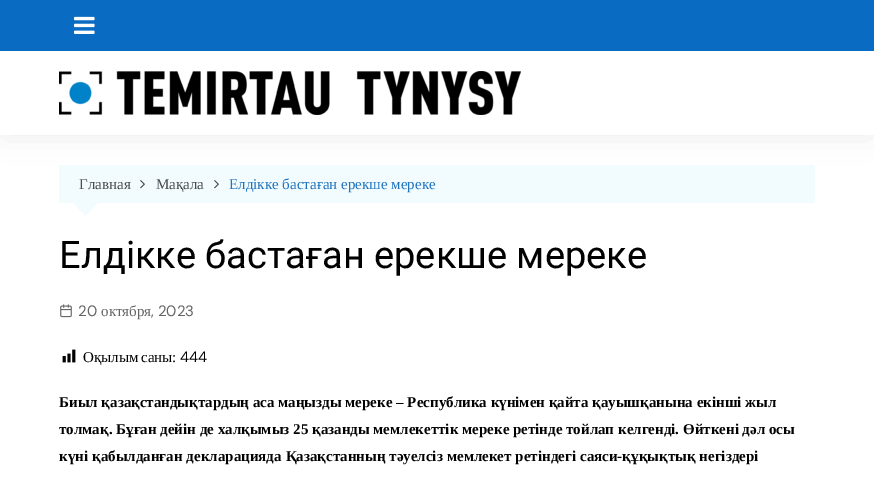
%!PS
<< /PageSize [874 481] /PageUsesTransparency true >> setpagedevice
/alpha { dup .setfillconstantalpha .setstrokeconstantalpha } def
/roundrect { 5 dict begin { /r /h /w /y /x } { exch def } forall
  x r add y moveto x w add y 2 copy h add r arct x w add y h add x 1 index r arct
  x y h add x y r arct x y 2 copy exch w add exch r arct closepath end } def
/shadow { 12 dict begin { /a /b /q /h /w /y /x } { exch def } forall gsave /was 0 def
  9 -2 -9 { dup b mul 4 div /e exch def 1 sub .425 mul 2.718 exch exp 1 add a .99 .min exch div /now exch def
    1 1 now sub 1 was sub div sub alpha /was now def
    w h .min e 2 mul add 0 gt { x e sub y e sub w e 2 mul add h e 2 mul add
      q e add b .6 mul add w h .min 2 div e add .min 0 .max roundrect fill } if } for grestore end } def
/picture { 5 dict begin { /h /w /y /x /name } { exch def } forall
  gsave x y translate w h scale
  w h 8 [w 0 0 h 0 0] name (r) file false 3 colorimage grestore end } def
0 .pushpdf14devicefilter
0 481 translate 1 -1 scale
4 setmiterlimit
1 setgray
0 0 874 481 rectfill
0 setgray
5 7 864 125 0 15 0.1 shadow
0.035 0.42 0.757 setrgbcolor
0 0 874 51 rectfill
(img1.rgb) 74 16 21 18 picture
1 setgray
0 51 874 84 rectfill
(img2.rgb) 59 71 462 44 picture
0.949 0.984 0.996 setrgbcolor
59 165 756 38 rectfill
/LiberationSerif-Regular [15 0 0 -15 0 0] selectfont
0.286 0.294 0.298 setrgbcolor
79 189 moveto (Главная) show
(img3.rgb) 140 180 5 9 picture
156 189 moveto (Мақала) show
(img3.rgb) 214 180 5 9 picture
0.118 0.451 0.745 setrgbcolor
229 189 moveto (Елдікке бастаған ерекше мереке) show
0.949 0.984 0.996 setrgbcolor
newpath 73.5 203 moveto 97.5 203 lineto 85.5 216 lineto closepath fill
/Roboto-Regular [38 0 0 -38 0 0] selectfont
0.004 setgray
59 268 moveto (Елдікке бастаған ерекше мереке) show
(img4.rgb) 60 304 12 14 picture
/DMSans-Regular [15 0 0 -15 0 0] selectfont
0.4 setgray
78 316 moveto (20) show
/LiberationSerif-Regular [15 0 0 -15 0 0] selectfont
101 316 moveto (октября) show
/DMSans-Regular [15 0 0 -15 0 0] selectfont
151 316 moveto (, 2023) show
(img5.rgb) 62 349 14 14 picture
/LiberationSerif-Regular [15 0 0 -15 0 0] selectfont
0.004 setgray
83 362 moveto -1 0 32 (Оқылым саны:) widthshow
/DMSans-Regular [15 0 0 -15 0 0] selectfont
180 362 moveto (444) show
/LiberationSerif-Bold [15 0 0 -15 0 0] selectfont
59 407 moveto (Биыл қазақстандықтардың аса маңызды мереке – Республика күнімен қайта қауышқанына екінші жыл) show
59 434 moveto (толмақ. Бұған дейін де халқымыз 25 қазанды мемлекеттік мереке ретінде тойлап келгенді. Өйткені дәл осы) show
59 461 moveto 0.25 0 32 (күні қабылданған декларацияда Қазақстанның тәуелсіз мемлекет ретіндегі саяси-құқықтық негіздері) widthshow
.poppdf14devicefilter showpage
